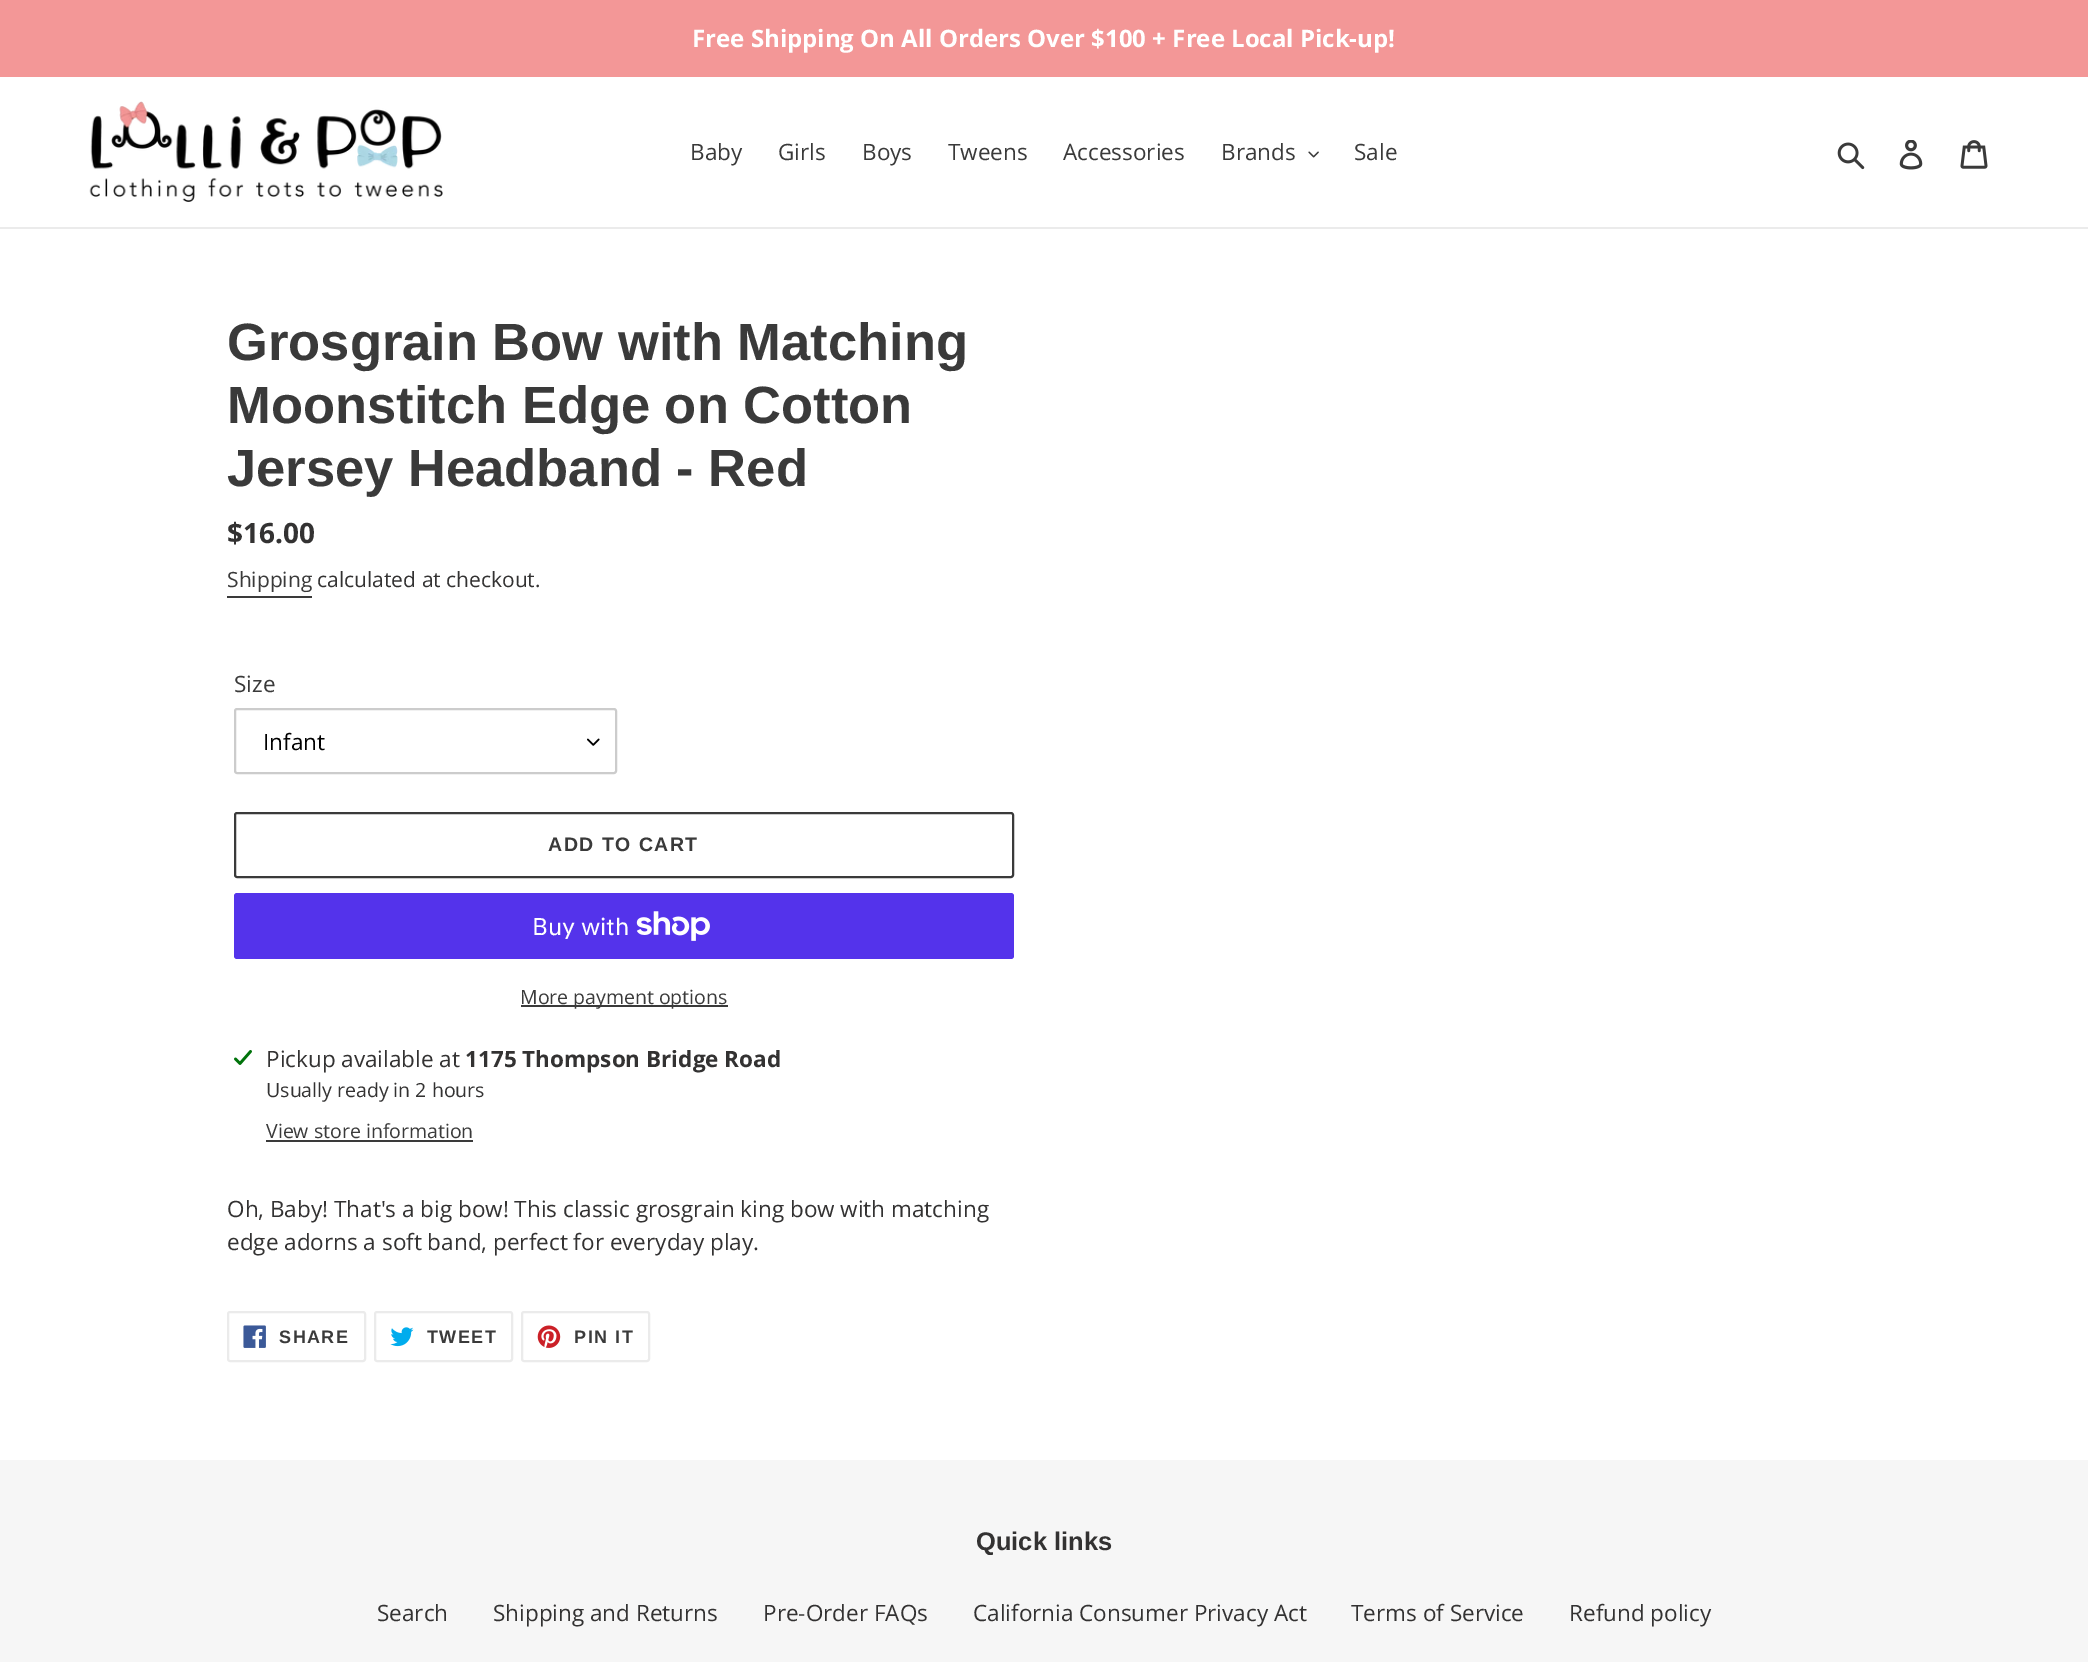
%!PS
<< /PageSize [2088 1662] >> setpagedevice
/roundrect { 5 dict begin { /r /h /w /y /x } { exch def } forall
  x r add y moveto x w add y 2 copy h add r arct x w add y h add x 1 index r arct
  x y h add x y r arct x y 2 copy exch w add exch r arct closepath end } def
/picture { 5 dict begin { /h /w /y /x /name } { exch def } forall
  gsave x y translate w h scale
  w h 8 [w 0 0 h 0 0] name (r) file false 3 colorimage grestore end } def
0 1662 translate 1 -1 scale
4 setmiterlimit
1 setgray
0 0 2088 1662 rectfill
0.953 0.592 0.592 setrgbcolor
0 0 2088 77 rectfill
/OpenSans-Bold [24 0 0 -24 0 0] selectfont
1 setgray
692 47 moveto (Free Shipping On All Orders Over $100 + Free Local Pick-up!) show
0.922 setgray
0 227 2088 2 rectfill
(img1.rgb) 89 101 354 101 picture
/OpenSans-Regular [22.5 0 0 -22.5 0 0] selectfont
0.227 setgray
690 160 moveto (Baby) show
778 160 moveto (Girls) show
862 160 moveto (Boys) show
948 160 moveto (Tweens) show
1063 160 moveto (Accessories) show
1221 160 moveto (Brands) show
(img2.rgb) 1308 151 11 7 picture
1354 160 moveto (Sale) show
(img3.rgb) 1837 142 28 28 picture
(img4.rgb) 1899 140 24 30 picture
(img5.rgb) 1960 140 28 29 picture
/LiberationSans-Bold [52.5 0 0 -52.5 0 0] selectfont
227 360 moveto (Grosgrain Bow with Matching) show
227 423 moveto (Moonstitch Edge on Cotton) show
227 486 moveto (Jersey Headband - Red) show
/OpenSans-Bold [28 0 0 -28 0 0] selectfont
0.2 0.196 0.196 setrgbcolor
227 543 moveto ($16.00) show
/OpenSans-Regular [21 0 0 -21 0 0] selectfont
0.227 setgray
227 587 moveto (Shipping) show
227 596 85 2 rectfill
0.2 0.196 0.196 setrgbcolor
317 587 moveto (calculated at checkout.) show
/OpenSans-Regular [22.5 0 0 -22.5 0 0] selectfont
0.227 setgray
234 692 moveto (Size) show
(img6.rgb) 587 738 13 8 picture
0.8 setgray
2 setlinewidth
235 709 381 64 2 roundrect stroke
0 setgray
263 750 moveto (Infant) show
0.227 setgray
235 813 778 64 2 roundrect stroke
/LiberationSans-Bold [19.5 0 0 -19.5 0 0] selectfont
548 851 moveto 1.5 0 (ADD TO CART) ashow
0.329 0.2 0.922 setrgbcolor
234 893 780 66 3 roundrect fill
/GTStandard-Regular [24 0 0 -24 0 0] selectfont
1 setgray
532 935 moveto (Buy with) show
(img7.rgb) 636 911 74 30 picture
0.227 setgray
521 1005 207 2 rectfill
/OpenSans-Regular [19.5 0 0 -19.5 0 0] selectfont
520 1004 moveto (More payment options) show
(img8.rgb) 234 1050 18 15 picture
/OpenSans-Regular [22.5 0 0 -22.5 0 0] selectfont
0.2 0.196 0.196 setrgbcolor
266 1067 moveto (Pickup available at) show
/OpenSans-Bold [22.5 0 0 -22.5 0 0] selectfont
465 1067 moveto (1175 Thompson Bridge Road) show
/OpenSans-Regular [19.5 0 0 -19.5 0 0] selectfont
266 1097 moveto (Usually ready in 2 hours) show
0.227 setgray
266 1138 moveto (View store information) show
266 1140 207 2 rectfill
/OpenSans-Regular [22.5 0 0 -22.5 0 0] selectfont
0.2 0.196 0.196 setrgbcolor
227 1217 moveto (Oh, Baby! That's a big bow! This classic grosgrain king bow with matching) show
227 1250 moveto (edge adorns a soft band, perfect for everyday play.) show
0.922 setgray
228 1312 137 49 2 roundrect stroke
(img9.rgb) 243 1325 23 23 picture
/LiberationSans-Bold [18 0 0 -18 0 0] selectfont
0.227 setgray
279 1343 moveto 1.5 0 (SHARE) ashow
0.922 setgray
375 1312 137 49 2 roundrect stroke
(img10.rgb) 390 1327 24 20 picture
0.227 setgray
427 1343 moveto 1.5 0 (TWEET) ashow
0.922 setgray
522 1312 127 49 2 roundrect stroke
(img11.rgb) 537 1325 24 23 picture
0.227 setgray
574 1343 moveto 1.5 0 (PIN IT) ashow
0.965 setgray
0 1460 2088 202 rectfill
/LiberationSans-Bold [25.5 0 0 -25.5 0 0] selectfont
0.2 0.196 0.196 setrgbcolor
976 1550 moveto (Quick links) show
/OpenSans-Regular [22.5 0 0 -22.5 0 0] selectfont
377 1621 moveto (Search) show
493 1621 moveto (Shipping and Returns) show
763 1621 moveto (Pre-Order FAQs) show
973 1621 moveto (California Consumer Privacy Act) show
1351 1621 moveto (Terms of Service) show
1569 1621 moveto (Refund policy) show
showpage
